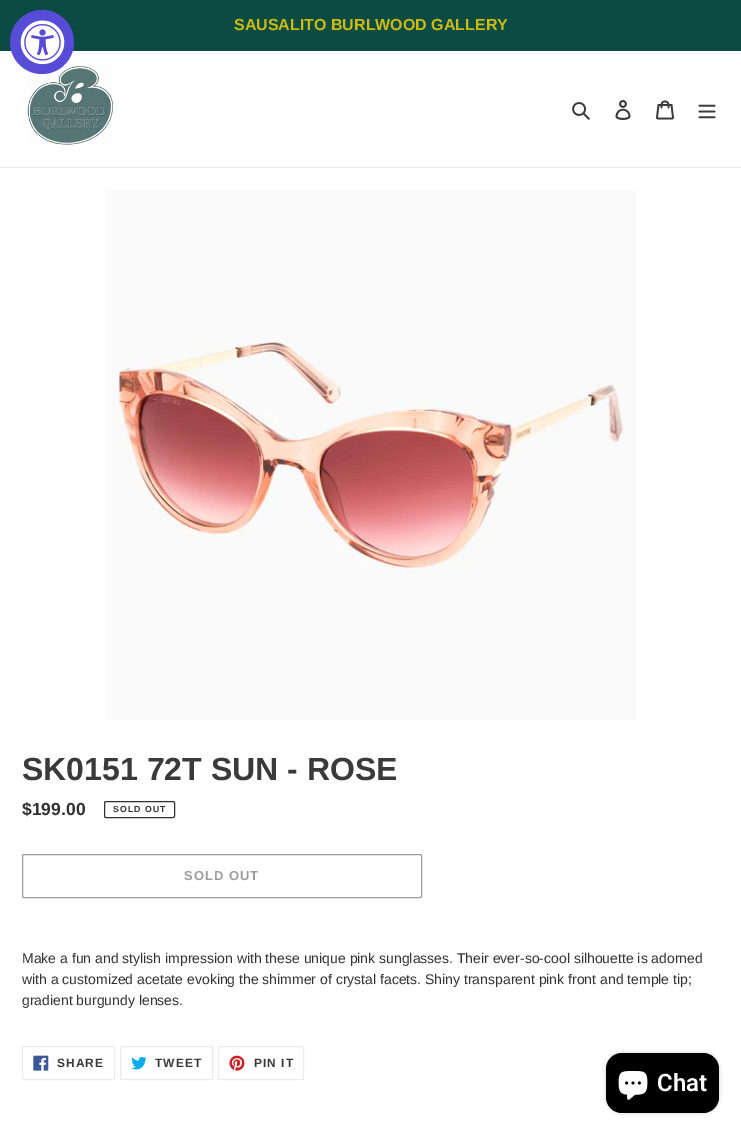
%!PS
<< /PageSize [741 1134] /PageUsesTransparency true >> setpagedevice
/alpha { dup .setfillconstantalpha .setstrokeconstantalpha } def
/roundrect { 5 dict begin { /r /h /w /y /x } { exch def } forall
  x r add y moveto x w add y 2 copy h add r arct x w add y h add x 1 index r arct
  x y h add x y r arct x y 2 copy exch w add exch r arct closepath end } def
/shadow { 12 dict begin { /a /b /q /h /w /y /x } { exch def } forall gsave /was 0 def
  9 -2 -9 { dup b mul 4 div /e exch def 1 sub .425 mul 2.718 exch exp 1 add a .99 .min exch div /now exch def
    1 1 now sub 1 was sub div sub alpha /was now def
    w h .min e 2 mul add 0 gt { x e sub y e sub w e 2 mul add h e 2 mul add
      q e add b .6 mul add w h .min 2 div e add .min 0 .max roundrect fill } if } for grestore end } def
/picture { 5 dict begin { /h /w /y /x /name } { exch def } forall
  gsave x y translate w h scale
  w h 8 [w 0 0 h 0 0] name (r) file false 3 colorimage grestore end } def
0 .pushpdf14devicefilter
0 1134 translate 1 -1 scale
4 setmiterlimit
1 setgray
0 0 741 1134 rectfill
0.039 0.298 0.267 setrgbcolor
0 0 741 51 rectfill
(img2.rgb) 27 66 86 80 picture
0.341 0.298 0.835 setrgbcolor
newpath 42 42 32 0 360 arc closepath fill
(img1.rgb) 20 20 45 45 picture
/LiberationSans-Bold [16 0 0 -16 0 0] selectfont
0.812 0.733 0.063 setrgbcolor
234 30 moveto (SAUSALITO BURLWOOD GALLERY) show
0.922 setgray
0 167 741 1 rectfill
(img3.rgb) 572 102 18 18 picture
(img4.rgb) 615 100 16 20 picture
(img5.rgb) 656 100 18 20 picture
(img6.rgb) 698 104 18 15 picture
(img7.rgb) 106 190 530 530 picture
/LiberationSans-Bold [32 0 0 -32 0 0] selectfont
0.227 setgray
22 780 moveto (SK0151 72T SUN - ROSE) show
/LiberationSans-Bold [17.5 0 0 -17.5 0 0] selectfont
0.2 0.196 0.196 setrgbcolor
22 815 moveto ($199.00) show
104.5 801.5 70 16 1.5 roundrect stroke
/LiberationSans-Bold [8.75 0 0 -8.75 0 0] selectfont
113 812 moveto 1 0 (SOLD OUT) ashow
0.616 setgray
22.5 854.5 399 43 1.5 roundrect stroke
/LiberationSans-Bold [13 0 0 -13 0 0] selectfont
184 880 moveto 1 0 (SOLD OUT) ashow
/LiberationSans-Regular [14 0 0 -14 0 0] selectfont
0.2 0.196 0.196 setrgbcolor
22 963 moveto (Make a fun and stylish impression with these unique pink sunglasses. Their ever-so-cool silhouette is adorned) show
22 984 moveto (with a customized acetate evoking the shimmer of crystal facets. Shiny transparent pink front and temple tip;) show
22 1005 moveto (gradient burgundy lenses.) show
0.922 setgray
22.5 1046.5 92 33 1.5 roundrect stroke
(img8.rgb) 33 1055 16 16 picture
/LiberationSans-Bold [12 0 0 -12 0 0] selectfont
0.227 setgray
57 1067 moveto 1 0 (SHARE) ashow
0.922 setgray
120.5 1046.5 92 33 1.5 roundrect stroke
(img9.rgb) 131 1056 16 14 picture
0.227 setgray
155 1067 moveto 1 0 (TWEET) ashow
0.922 setgray
218.5 1046.5 85 33 1.5 roundrect stroke
(img10.rgb) 229 1055 16 16 picture
0.227 setgray
254 1067 moveto 1 0 (PIN IT) ashow
0 setgray
606 1053 113 60 16 2.5 0.15 shadow
606 1053 113 60 16 roundrect fill
(img11.rgb) 618 1071 30 29 picture
/Roboto-SemiBold [24 0 0 -24 0 0] selectfont
1 setgray
657 1091 moveto (Chat) show
.poppdf14devicefilter showpage
